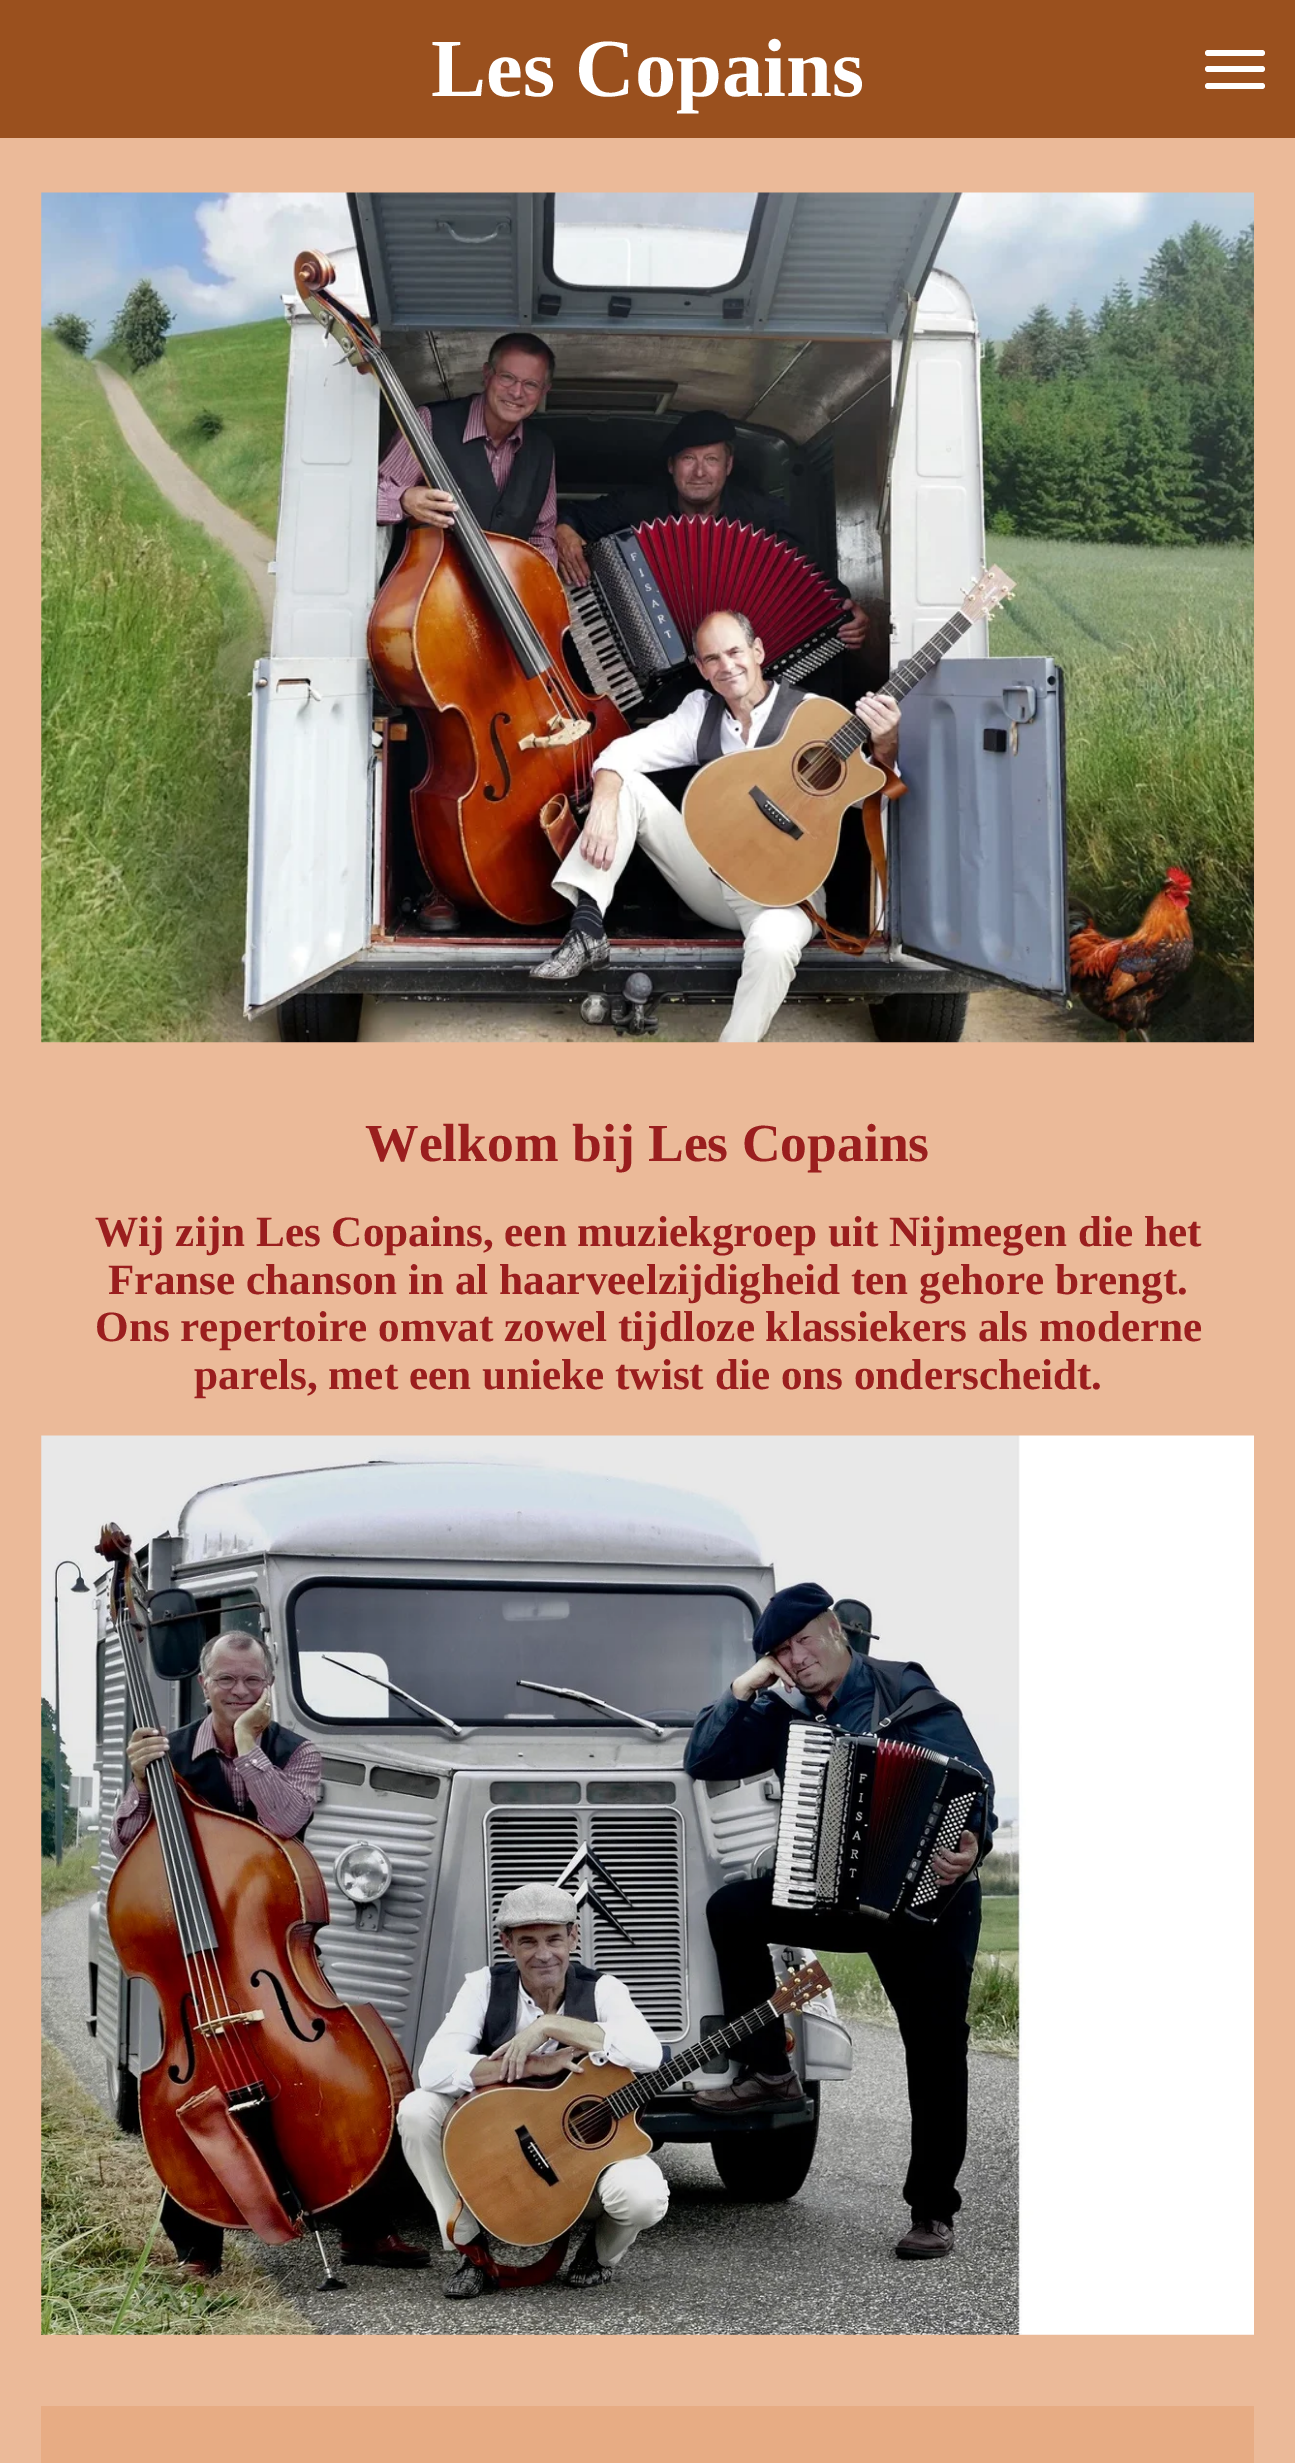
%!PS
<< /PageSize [1295 2463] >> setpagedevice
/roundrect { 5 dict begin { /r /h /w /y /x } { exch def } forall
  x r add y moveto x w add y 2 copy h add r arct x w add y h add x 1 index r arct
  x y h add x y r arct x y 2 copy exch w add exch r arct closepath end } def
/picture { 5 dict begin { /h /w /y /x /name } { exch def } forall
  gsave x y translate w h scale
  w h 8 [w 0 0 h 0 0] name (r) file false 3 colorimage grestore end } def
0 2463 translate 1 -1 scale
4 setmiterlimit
0.922 0.729 0.6 setrgbcolor
0 0 1295 2463 rectfill
0.604 0.314 0.118 setrgbcolor
0 0 121 138 rectfill
121 0 1174 138 rectfill
1 setgray
1205 66 60 6 3 roundrect fill
1205 50 60 6 3 roundrect fill
1205 83 60 6 3 roundrect fill
/LiberationSerif-Bold [82.5 0 0 -82.5 0 0] selectfont
431 96 moveto (Les Copains) show
(img1.rgb) 41 192 1213 851 picture
/LiberationSerif-Bold [53.6 0 0 -53.6 0 0] selectfont
0.604 0.118 0.118 setrgbcolor
365 1161 moveto (Welkom bij Les Copains) show
/LiberationSerif-Bold [43.2 0 0 -43.2 0 0] selectfont
95 1246 moveto (Wij zijn Les Copains, een muziekgroep uit Nijmegen die het) show
108 1294 moveto (Franse chanson in al haarveelzijdigheid ten gehore brengt.) show
95 1341 moveto (Ons repertoire omvat zowel tijdloze klassiekers als moderne) show
194 1389 moveto (parels, met een unieke twist die ons onderscheidt.) show
(img2.rgb) 41 1435 1213 900 picture
0.906 0.675 0.518 setrgbcolor
41 2406 1213 57 rectfill
showpage
